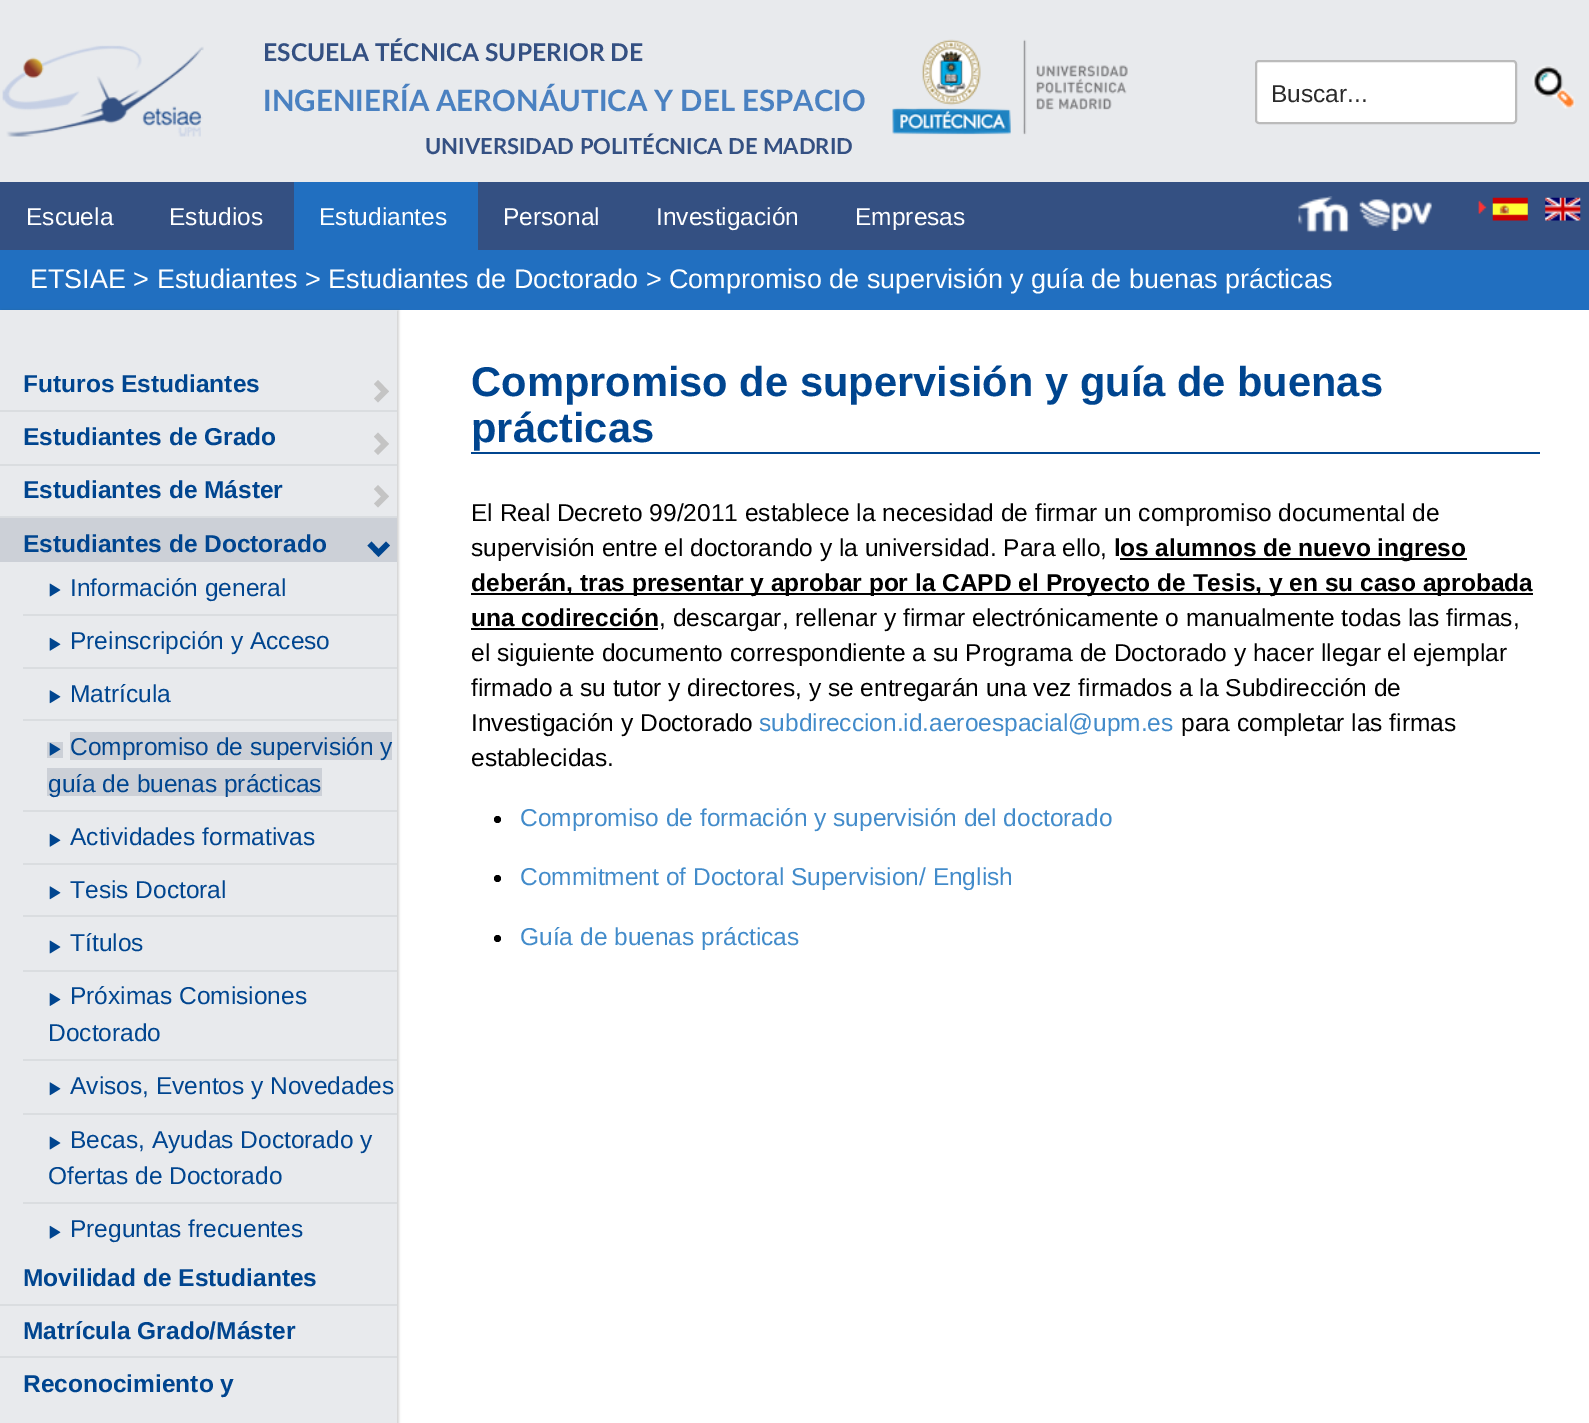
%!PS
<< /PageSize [1589 1423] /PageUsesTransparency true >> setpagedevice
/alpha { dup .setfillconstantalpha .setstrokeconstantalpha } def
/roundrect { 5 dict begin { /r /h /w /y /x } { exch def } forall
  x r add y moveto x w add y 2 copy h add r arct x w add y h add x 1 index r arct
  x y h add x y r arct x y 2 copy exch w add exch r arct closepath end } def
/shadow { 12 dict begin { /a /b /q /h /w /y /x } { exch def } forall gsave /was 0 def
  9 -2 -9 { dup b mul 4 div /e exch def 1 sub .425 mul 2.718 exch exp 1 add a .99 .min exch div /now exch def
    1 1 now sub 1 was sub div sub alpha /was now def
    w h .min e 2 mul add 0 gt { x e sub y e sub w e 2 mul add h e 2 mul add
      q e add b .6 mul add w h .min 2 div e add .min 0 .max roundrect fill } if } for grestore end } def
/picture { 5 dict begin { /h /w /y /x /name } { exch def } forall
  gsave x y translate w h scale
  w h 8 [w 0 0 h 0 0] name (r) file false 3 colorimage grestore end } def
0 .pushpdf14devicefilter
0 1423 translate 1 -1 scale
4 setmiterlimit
1 setgray
0 0 1589 1423 rectfill
0.91 0.918 0.929 setrgbcolor
0 0 1589 182 rectfill
(img1.rgb) 2 45 202 92 picture
/Lato-Bold [24.5 0 0 -24.5 0 0] selectfont
0.204 0.314 0.51 setrgbcolor
263 61 moveto (ESCUELA TÉCNICA SUPERIOR DE) show
/Lato-Bold [29.4 0 0 -29.4 0 0] selectfont
0.29 0.506 0.757 setrgbcolor
263 111 moveto (INGENIERÍA AERONÁUTICA Y DEL ESPACIO) show
/Lato-Bold [22 0 0 -22 0 0] selectfont
0.204 0.314 0.51 setrgbcolor
425 154 moveto (UNIVERSIDAD POLITÉCNICA DE MADRID) show
(img2.rgb) 892 39 236 96 picture
1 setgray
1256 61 260 62 3 roundrect gsave fill grestore
0.733 setgray
2 setlinewidth
stroke
/LiberationSans-Regular [24.5 0 0 -24.5 0 0] selectfont
0.169 setgray
1271 102 moveto (Buscar...) show
(img3.rgb) 1531 65 44 44 picture
0.204 0.314 0.51 setrgbcolor
0 182 1589 68 rectfill
1 setgray
26 225 moveto (Escuela) show
169 225 moveto (Estudios) show
0.129 0.435 0.753 setrgbcolor
294 182 184 68 rectfill
1 setgray
319 225 moveto (Estudiantes) show
503 225 moveto (Personal) show
656 225 moveto (Investigación) show
855 225 moveto (Empresas) show
(img4.rgb) 1298 196 52 37 picture
(img5.rgb) 1359 199 73 32 picture
(img6.rgb) 1478 200 9 14 picture
(img7.rgb) 1492 197 36 24 picture
(img8.rgb) 1545 197 36 24 picture
0.129 0.435 0.753 setrgbcolor
0 250 1589 60 rectfill
/LiberationSans-Regular [26.95 0 0 -26.95 0 0] selectfont
1 setgray
30 288 moveto (ETSIAE > Estudiantes > Estudiantes de Doctorado > Compromiso de supervisión y guía de buenas prácticas) show
0.196 setgray
2 310 397 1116 0 1 0.2 shadow
0.91 0.918 0.929 setrgbcolor
0 310 397 1113 rectfill
0.855 0.867 0.878 setrgbcolor
0 410 397 2 rectfill
/LiberationSans-Bold [24.5 0 0 -24.5 0 0] selectfont
0 0.271 0.561 setrgbcolor
23 392 moveto (Futuros Estudiantes) show
0.769 setgray
newpath 389 391.5 moveto 378 402.5 lineto 374 398.5 lineto 381 391.5 lineto 374 384 lineto 378 380 lineto closepath fill
0.855 0.867 0.878 setrgbcolor
0 464 397 2 rectfill
0 0.271 0.561 setrgbcolor
23 445 moveto (Estudiantes de Grado) show
0.769 setgray
newpath 389 444 moveto 378 455 lineto 374 451 lineto 381 444 lineto 374 436.5 lineto 378 432.5 lineto closepath fill
0.855 0.867 0.878 setrgbcolor
0 516 397 2 rectfill
0 0.271 0.561 setrgbcolor
23 498 moveto (Estudiantes de Máster) show
0.769 setgray
newpath 389 496.5 moveto 378 507.5 lineto 374 503.5 lineto 381 496.5 lineto 374 489 lineto 378 485 lineto closepath fill
0.8 0.816 0.843 setrgbcolor
0 518 397 44 rectfill
0 0.271 0.561 setrgbcolor
23 552 moveto (Estudiantes de Doctorado) show
newpath 390 545.5 moveto 378.5 557 lineto 367.5 545.5 lineto 371.5 541.5 lineto 378.5 549 lineto 386 541.5 lineto closepath fill
0.855 0.867 0.878 setrgbcolor
23 614 374 2 rectfill
(img9.rgb) 49 583 12 14 picture
/LiberationSans-Regular [24.5 0 0 -24.5 0 0] selectfont
0 0.271 0.561 setrgbcolor
70 596 moveto (Información general) show
0.855 0.867 0.878 setrgbcolor
23 667 374 2 rectfill
(img10.rgb) 49 637 12 14 picture
0 0.271 0.561 setrgbcolor
70 649 moveto (Preinscripción y Acceso) show
0.855 0.867 0.878 setrgbcolor
23 719 374 2 rectfill
(img11.rgb) 49 690 12 14 picture
0 0.271 0.561 setrgbcolor
70 702 moveto (Matrícula) show
0.855 0.867 0.878 setrgbcolor
23 810 374 2 rectfill
0.8 0.816 0.843 setrgbcolor
47 742 16 16 rectfill
70 732 322 28 rectfill
47 768 275 28 rectfill
(img12.rgb) 49 742 12 14 picture
0 0.271 0.561 setrgbcolor
70 755 moveto (Compromiso de supervisión y) show
48 792 moveto (guía de buenas prácticas) show
0.855 0.867 0.878 setrgbcolor
23 863 374 2 rectfill
(img10.rgb) 49 833 12 14 picture
0 0.271 0.561 setrgbcolor
70 845 moveto (Actividades formativas) show
0.855 0.867 0.878 setrgbcolor
23 915 374 2 rectfill
(img11.rgb) 49 886 12 14 picture
0 0.271 0.561 setrgbcolor
70 898 moveto (Tesis Doctoral) show
0.855 0.867 0.878 setrgbcolor
23 970 374 2 rectfill
(img9.rgb) 49 940 12 14 picture
0 0.271 0.561 setrgbcolor
70 951 moveto (Títulos) show
0.855 0.867 0.878 setrgbcolor
23 1059 374 2 rectfill
(img13.rgb) 49 993 12 13 picture
0 0.271 0.561 setrgbcolor
70 1004 moveto (Próximas Comisiones) show
48 1041 moveto (Doctorado) show
0.855 0.867 0.878 setrgbcolor
23 1113 374 2 rectfill
(img11.rgb) 49 1082 12 14 picture
0 0.271 0.561 setrgbcolor
70 1094 moveto (Avisos, Eventos y Novedades) show
0.855 0.867 0.878 setrgbcolor
23 1202 374 2 rectfill
(img9.rgb) 49 1136 12 14 picture
0 0.271 0.561 setrgbcolor
70 1148 moveto (Becas, Ayudas Doctorado y) show
48 1184 moveto (Ofertas de Doctorado) show
(img10.rgb) 49 1225 12 14 picture
70 1237 moveto (Preguntas frecuentes) show
0.855 0.867 0.878 setrgbcolor
0 1304 397 2 rectfill
/LiberationSans-Bold [24.5 0 0 -24.5 0 0] selectfont
0 0.271 0.561 setrgbcolor
23 1286 moveto (Movilidad de Estudiantes) show
0.855 0.867 0.878 setrgbcolor
0 1356 397 2 rectfill
0 0.271 0.561 setrgbcolor
23 1339 moveto (Matrícula Grado/Máster) show
23 1392 moveto (Reconocimiento y) show
471 452 1069 2 rectfill
/LiberationSans-Bold [41.65 0 0 -41.65 0 0] selectfont
471 396 moveto (Compromiso de supervisión y guía de buenas) show
471 442 moveto (prácticas) show
/LiberationSans-Regular [24.5 0 0 -24.5 0 0] selectfont
0 setgray
471 521 moveto (El Real Decreto 99/2011 establece la necesidad de firmar un compromiso documental de) show
471 556 moveto (supervisión entre el doctorando y la universidad. Para ello,) show
/LiberationSans-Bold [24.5 0 0 -24.5 0 0] selectfont
1114 556 moveto (l) show
1120 558 347 2 rectfill
1120 556 moveto (os alumnos de nuevo ingreso) show
471 593 1062 2 rectfill
471 591 moveto (deberán, tras presentar y aprobar por la CAPD el Proyecto de Tesis, y en su caso aprobada) show
471 626 moveto (una codirección) show
471 628 187 2 rectfill
/LiberationSans-Regular [24.5 0 0 -24.5 0 0] selectfont
659 626 moveto (, descargar, rellenar y firmar electrónicamente o manualmente todas las firmas,) show
471 661 moveto (el siguiente documento correspondiente a su Programa de Doctorado y hacer llegar el ejemplar) show
471 696 moveto (firmado a su tutor y directores, y se entregarán una vez firmados a la Subdirección de) show
471 731 moveto (Investigación y Doctorado) show
0.259 0.545 0.792 setrgbcolor
759 731 moveto (subdireccion.id.aeroespacial@upm.es) show
0 setgray
1181 731 moveto (para completar las firmas) show
471 766 moveto (establecidas.) show
newpath 497.5 819.5 3.5 0 360 arc closepath fill
0.259 0.545 0.792 setrgbcolor
520 826 moveto (Compromiso de formación y supervisión del doctorado) show
0 setgray
newpath 497.5 878.5 3.5 0 360 arc closepath fill
0.259 0.545 0.792 setrgbcolor
520 885 moveto (Commitment of Doctoral Supervision/ English) show
0 setgray
newpath 497.5 938.5 3.5 0 360 arc closepath fill
0.259 0.545 0.792 setrgbcolor
520 945 moveto (Guía de buenas prácticas) show
.poppdf14devicefilter showpage
